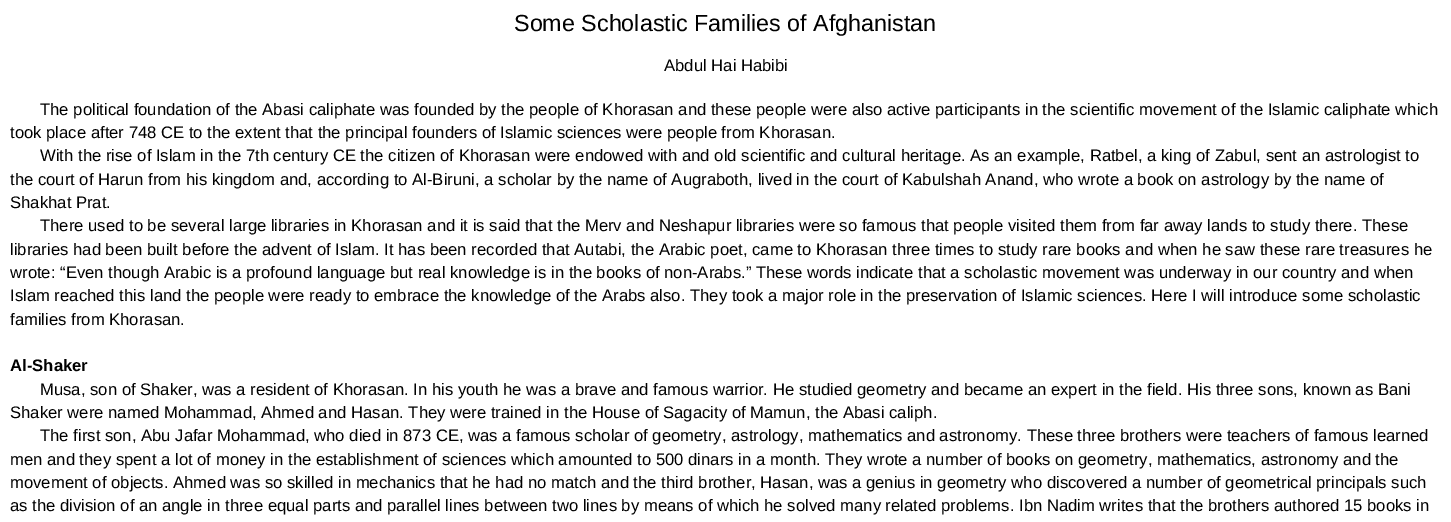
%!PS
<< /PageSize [1451 522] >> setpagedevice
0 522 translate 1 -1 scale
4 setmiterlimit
1 setgray
0 0 1451 522 rectfill
/LiberationSans-Regular [23.3 0 0 -23.3 0 0] selectfont
0 setgray
514 31 moveto (Some Scholastic Families of Afghanistan) show
/LiberationSans-Regular [16.67 0 0 -16.67 0 0] selectfont
664 71 moveto (Abdul Hai Habibi) show
40 115 moveto (The political foundation of the Abasi caliphate was founded by the people of Khorasan and these people were also active participants in the scientific movement of the Islamic caliphate which) show
10 138 moveto (took place after 748 CE to the extent that the principal founders of Islamic sciences were people from Khorasan.) show
40 161 moveto (With the rise of Islam in the 7th century CE the citizen of Khorasan were endowed with and old scientific and cultural heritage. As an example, Ratbel, a king of Zabul, sent an astrologist to) show
10 185 moveto (the court of Harun from his kingdom and, according to Al-Biruni, a scholar by the name of Augraboth, lived in the court of Kabulshah Anand, who wrote a book on astrology by the name of) show
10 208 moveto (Shakhat Prat.) show
40 231 moveto (There used to be several large libraries in Khorasan and it is said that the Merv and Neshapur libraries were so famous that people visited them from far away lands to study there. These) show
10 255 moveto (libraries had been built before the advent of Islam. It has been recorded that Autabi, the Arabic poet, came to Khorasan three times to study rare books and when he saw these rare treasures he) show
10 278 moveto (wrote: “Even though Arabic is a profound language but real knowledge is in the books of non-Arabs.” These words indicate that a scholastic movement was underway in our country and when) show
10 301 moveto (Islam reached this land the people were ready to embrace the knowledge of the Arabs also. They took a major role in the preservation of Islamic sciences. Here I will introduce some scholastic) show
10 325 moveto (families from Khorasan.) show
/LiberationSans-Bold [16.67 0 0 -16.67 0 0] selectfont
10 371 moveto (Al-Shaker) show
/LiberationSans-Regular [16.67 0 0 -16.67 0 0] selectfont
40 395 moveto (Musa, son of Shaker, was a resident of Khorasan. In his youth he was a brave and famous warrior. He studied geometry and became an expert in the field. His three sons, known as Bani) show
10 418 moveto (Shaker were named Mohammad, Ahmed and Hasan. They were trained in the House of Sagacity of Mamun, the Abasi caliph.) show
40 441 moveto (The first son, Abu Jafar Mohammad, who died in 873 CE, was a famous scholar of geometry, astrology, mathematics and astronomy. These three brothers were teachers of famous learned) show
10 465 moveto (men and they spent a lot of money in the establishment of sciences which amounted to 500 dinars in a month. They wrote a number of books on geometry, mathematics, astronomy and the) show
10 488 moveto (movement of objects. Ahmed was so skilled in mechanics that he had no match and the third brother, Hasan, was a genius in geometry who discovered a number of geometrical principals such) show
10 511 moveto (as the division of an angle in three equal parts and parallel lines between two lines by means of which he solved many related problems. Ibn Nadim writes that the brothers authored 15 books in) show
showpage
